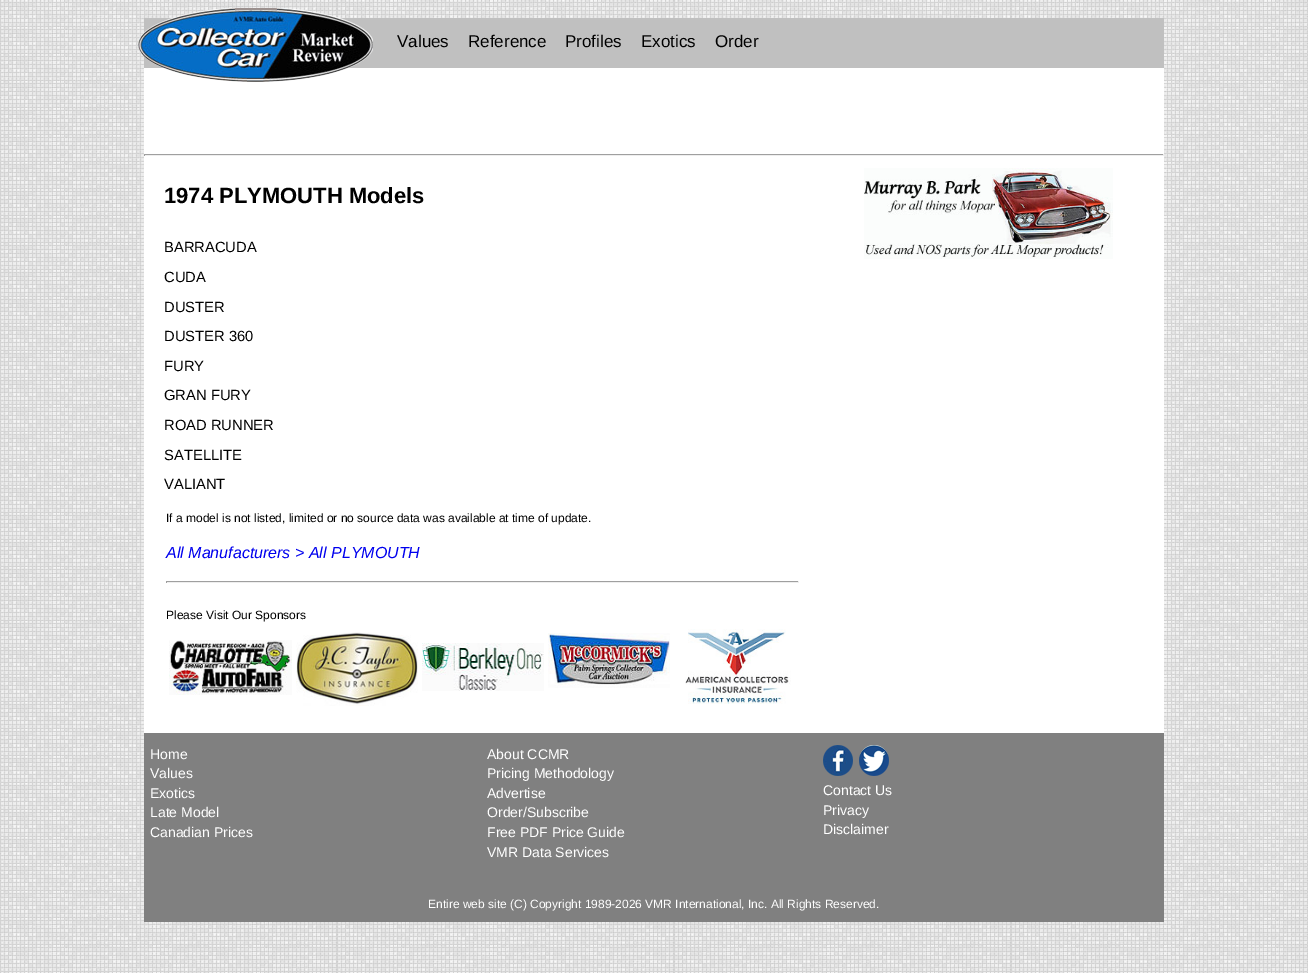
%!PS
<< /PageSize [1308 973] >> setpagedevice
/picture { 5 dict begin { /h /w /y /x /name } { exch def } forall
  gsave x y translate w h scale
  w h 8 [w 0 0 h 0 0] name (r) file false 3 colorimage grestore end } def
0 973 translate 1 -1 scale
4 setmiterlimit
1 setgray
0 0 1308 973 rectfill
(img1.rgb) 0 0 1308 973 picture
0.753 setgray
144 18 1020 50 rectfill
1 setgray
144 68 1020 86 rectfill
(img2.rgb) 138 8 235 74 picture
/LiberationSans-Regular [17 0 0 -17 0 0] selectfont
0 setgray
397 47 moveto (Values) show
468 47 moveto (Reference) show
565 47 moveto (Profiles) show
641 47 moveto (Exotics) show
715 47 moveto (Order) show
1 setgray
144 156 1020 577 rectfill
0.624 setgray
144 154 1020 1 rectfill
0.933 setgray
1163 154 1 2 rectfill
144 155 1020 1 rectfill
0.624 setgray
144 154 1 2 rectfill
/LiberationSans-Bold [22 0 0 -22 0 0] selectfont
0 setgray
164 203 moveto (1974 PLYMOUTH Models) show
/LiberationSans-Regular [14.75 0 0 -14.75 0 0] selectfont
164 252 moveto (BARRACUDA) show
164 282 moveto (CUDA) show
164 312 moveto (DUSTER) show
164 341 moveto (DUSTER 360) show
164 371 moveto (FURY) show
164 400 moveto (GRAN FURY) show
164 430 moveto (ROAD RUNNER) show
164 460 moveto (SATELLITE) show
164 489 moveto (VALIANT) show
/LiberationSans-Regular [12 0 0 -12 0 0] selectfont
166 522 moveto (If a model is not listed, limited or no source data was available at time of update.) show
/LiberationSans-Italic [16 0 0 -16 0 0] selectfont
0 0 0.933 setrgbcolor
166 558 moveto (All Manufacturers > All PLYMOUTH) show
0.624 setgray
166 581 633 1 rectfill
0.933 setgray
798 581 1 2 rectfill
166 582 633 1 rectfill
0.624 setgray
166 581 1 2 rectfill
/LiberationSans-Regular [12 0 0 -12 0 0] selectfont
0 setgray
166 619 moveto (Please Visit Our Sponsors) show
(img3.rgb) 169 640 123 55 picture
(img4.rgb) 296 632 122 74 picture
(img5.rgb) 422 643 122 48 picture
(img6.rgb) 548 633 122 55 picture
(img7.rgb) 685 629 106 75 picture
(img8.rgb) 864 168 249 91 picture
0.502 setgray
144 733 1020 189 rectfill
/LiberationSans-Regular [14 0 0 -14 0 0] selectfont
1 setgray
150 759 moveto (Home) show
150 778 moveto (Values) show
150 798 moveto (Exotics) show
150 817 moveto (Late Model) show
150 837 moveto (Canadian Prices) show
487 759 moveto (About CCMR) show
487 778 moveto (Pricing Methodology) show
487 798 moveto (Advertise) show
487 817 moveto (Order/Subscribe) show
487 837 moveto (Free PDF Price Guide) show
487 857 moveto (VMR Data Services) show
(img9.rgb) 823 745 30 31 picture
(img10.rgb) 859 745 30 31 picture
823 795 moveto (Contact Us) show
823 815 moveto (Privacy) show
823 834 moveto (Disclaimer) show
/LiberationSans-Regular [12 0 0 -12 0 0] selectfont
428 908 moveto (Entire web site \(C\) Copyright 1989-2026 VMR International, Inc. All Rights Reserved.) show
showpage
